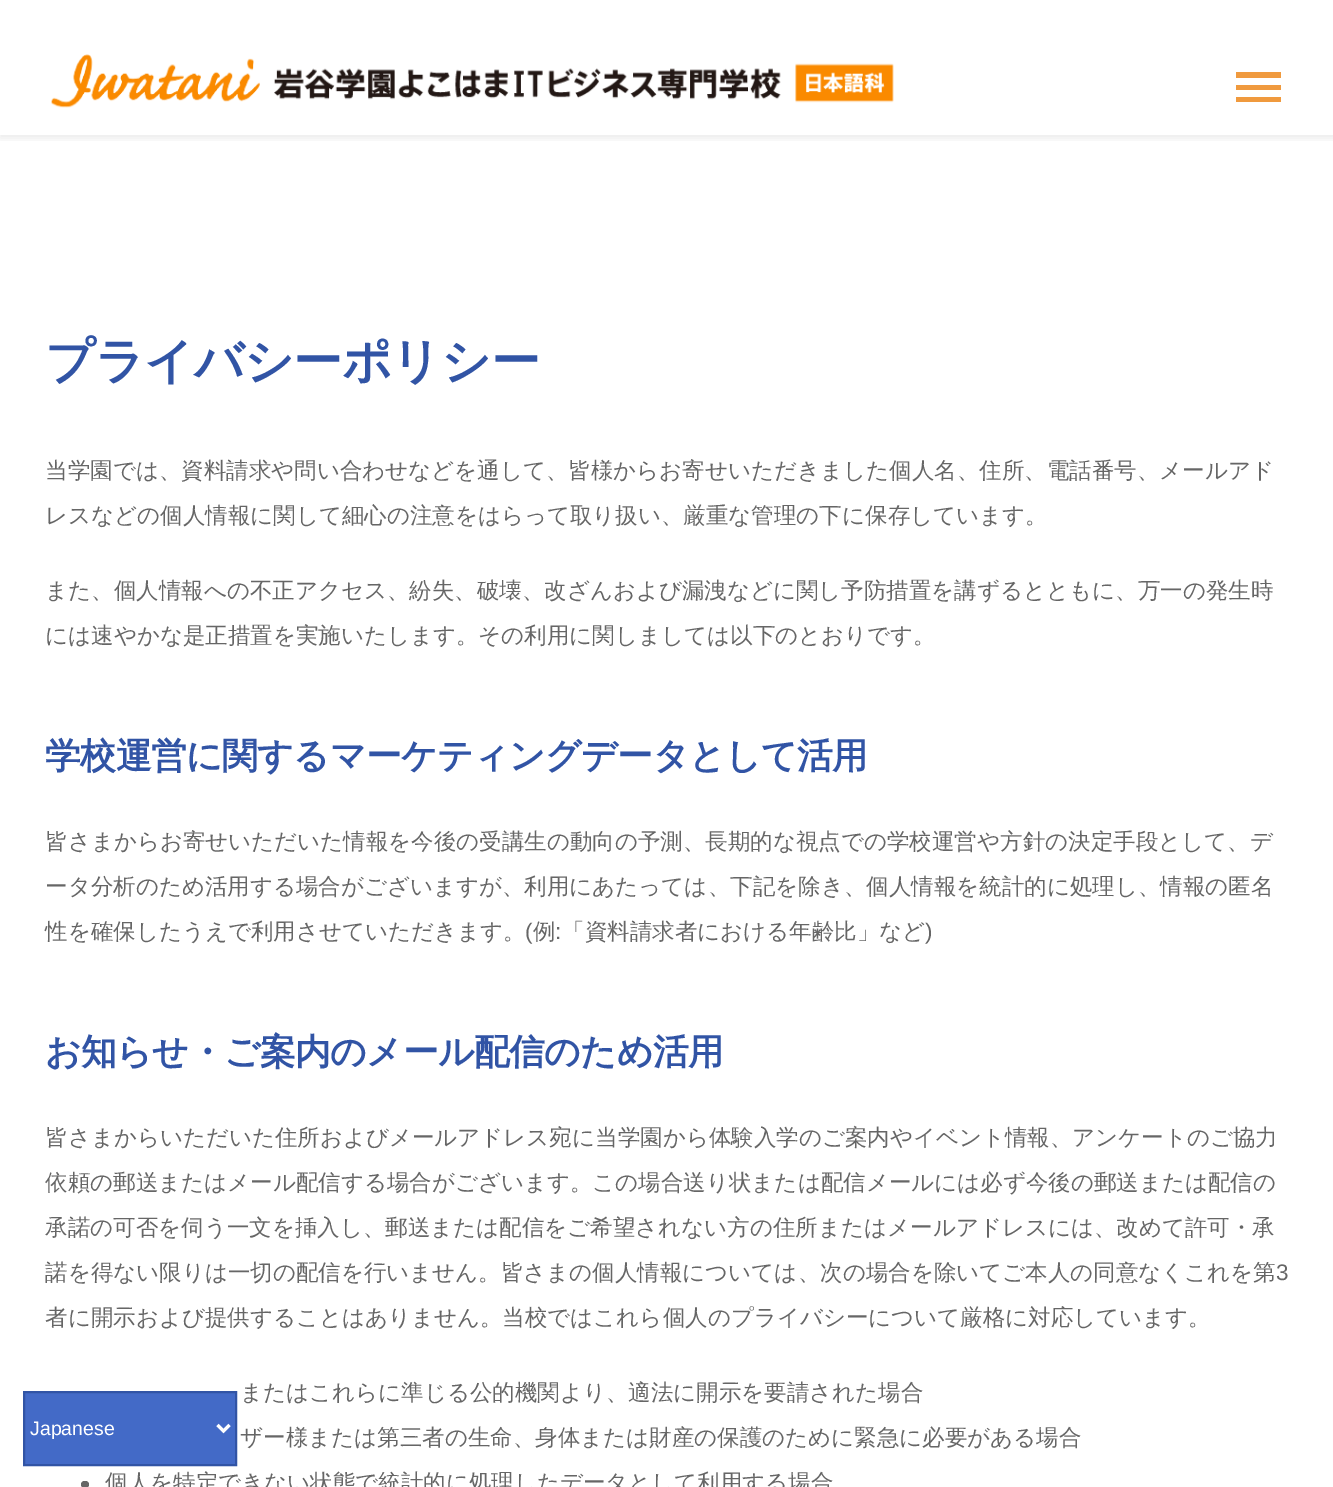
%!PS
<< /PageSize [1333 1487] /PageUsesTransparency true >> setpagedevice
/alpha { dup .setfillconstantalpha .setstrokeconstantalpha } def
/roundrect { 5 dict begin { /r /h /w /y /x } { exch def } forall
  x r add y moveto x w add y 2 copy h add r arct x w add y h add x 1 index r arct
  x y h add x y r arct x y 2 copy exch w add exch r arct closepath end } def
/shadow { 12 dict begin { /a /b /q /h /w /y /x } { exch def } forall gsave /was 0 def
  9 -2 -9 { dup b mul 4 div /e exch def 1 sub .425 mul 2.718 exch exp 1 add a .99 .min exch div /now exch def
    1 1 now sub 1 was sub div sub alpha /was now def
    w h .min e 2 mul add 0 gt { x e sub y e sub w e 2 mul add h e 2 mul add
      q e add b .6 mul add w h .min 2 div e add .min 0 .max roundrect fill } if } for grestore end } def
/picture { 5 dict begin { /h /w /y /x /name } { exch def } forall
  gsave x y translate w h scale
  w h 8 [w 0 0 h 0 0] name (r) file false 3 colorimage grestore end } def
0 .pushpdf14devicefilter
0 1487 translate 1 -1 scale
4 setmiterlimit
1 setgray
0 0 1333 1487 rectfill
gsave
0 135 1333 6 rectclip
0.2 setgray
0 3 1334 135 0 4 0.1 shadow
grestore
(img1.rgb) 51 54 843 54 picture
0.941 0.604 0.243 setrgbcolor
newpath 1236 72 moveto 1281 72 lineto 1281 78 lineto 1236 78 lineto closepath 1236 90 moveto 1236 85 lineto 1281 85 lineto 1281 90 lineto closepath 1236 102 moveto 1236 97 lineto 1281 97 lineto 1281 102 lineto closepath fill
/WenQuanYiZenHei-Bold [49.25 0 0 -49.25 0 0] selectfont
0.192 0.329 0.647 setrgbcolor
45 378 moveto -0.75 0 (プライバシーポリシー) ashow
/WenQuanYiZenHei-Medium [22.5 0 0 -22.5 0 0] selectfont
0.4 setgray
45 478 moveto (当学園では、資料請求や問い合わせなどを通して、皆様からお寄せいただきました個人名、住所、電話番号、メールアド) show
45 523 moveto (レスなどの個人情報に関して細心の注意をはらって取り扱い、厳重な管理の下に保存しています。) show
45 598 moveto (また、個人情報への不正アクセス、紛失、破壊、改ざんおよび漏洩などに関し予防措置を講ずるとともに、万一の発生時) show
45 643 moveto (には速やかな是正措置を実施いたします。その利用に関しましては以下のとおりです。) show
/WenQuanYiZenHei-Bold [35.75 0 0 -35.75 0 0] selectfont
0.192 0.329 0.647 setrgbcolor
45 768 moveto -0.5 0 (学校運営に関するマーケティングデータとして活用) ashow
/WenQuanYiZenHei-Medium [22.5 0 0 -22.5 0 0] selectfont
0.4 setgray
45 849 moveto (皆さまからお寄せいただいた情報を今後の受講生の動向の予測、長期的な視点での学校運営や方針の決定手段として、デ) show
45 894 moveto (ータ分析のため活用する場合がございますが、利用にあたっては、下記を除き、個人情報を統計的に処理し、情報の匿名) show
45 939 moveto (性を確保したうえで利用させていただきます。) show
/LiberationSans-Regular [22.5 0 0 -22.5 0 0] selectfont
525 939 moveto (\() show
/WenQuanYiZenHei-Medium [22.5 0 0 -22.5 0 0] selectfont
533 939 moveto (例) show
/LiberationSans-Regular [22.5 0 0 -22.5 0 0] selectfont
555 939 moveto (:) show
/WenQuanYiZenHei-Medium [22.5 0 0 -22.5 0 0] selectfont
562 939 moveto (「資料請求者における年齢比」など) show
/LiberationSans-Regular [22.5 0 0 -22.5 0 0] selectfont
925 939 moveto (\)) show
/WenQuanYiZenHei-Bold [35.75 0 0 -35.75 0 0] selectfont
0.192 0.329 0.647 setrgbcolor
45 1064 moveto -0.5 0 (お知らせ・ご案内のメール配信のため活用) ashow
/WenQuanYiZenHei-Medium [22.5 0 0 -22.5 0 0] selectfont
0.4 setgray
45 1145 moveto (皆さまからいただいた住所およびメールアドレス宛に当学園から体験入学のご案内やイベント情報、アンケートのご協力) show
45 1190 moveto (依頼の郵送またはメール配信する場合がございます。この場合送り状または配信メールには必ず今後の郵送または配信の) show
45 1235 moveto (承諾の可否を伺う一文を挿入し、郵送または配信をご希望されない方の住所またはメールアドレスには、改めて許可・承) show
45 1280 moveto (諾を得ない限りは一切の配信を行いません。皆さまの個人情報については、次の場合を除いてご本人の同意なくこれを第) show
/LiberationSans-Regular [22.5 0 0 -22.5 0 0] selectfont
1276 1280 moveto (3) show
/WenQuanYiZenHei-Medium [22.5 0 0 -22.5 0 0] selectfont
45 1325 moveto (者に開示および提供することはありません。当校ではこれら個人のプライバシーについて厳格に対応しています。) show
240 1400 moveto (またはこれらに準じる公的機関より、適法に開示を要請された場合) show
240 1445 moveto (ザー様または第三者の生命、身体または財産の保護のために緊急に必要がある場合) show
81 1481 8 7 3.5 roundrect fill
105 1490 moveto (個人を特定できない状態で統計的に処理したデータとして利用する場合) show
0.263 0.416 0.78 setrgbcolor
newpath 24 1392 moveto 236 1392 lineto 236 1465 lineto 24 1465 lineto closepath gsave fill grestore
0.192 0.329 0.647 setrgbcolor
2 setlinewidth
stroke
1 setgray
3 setlinewidth
newpath 217.5 1425 moveto 223.5 1431 lineto 229.5 1425 lineto stroke
/LiberationSans-Regular [19.5 0 0 -19.5 0 0] selectfont
30 1435 moveto (Japanese) show
.poppdf14devicefilter showpage
